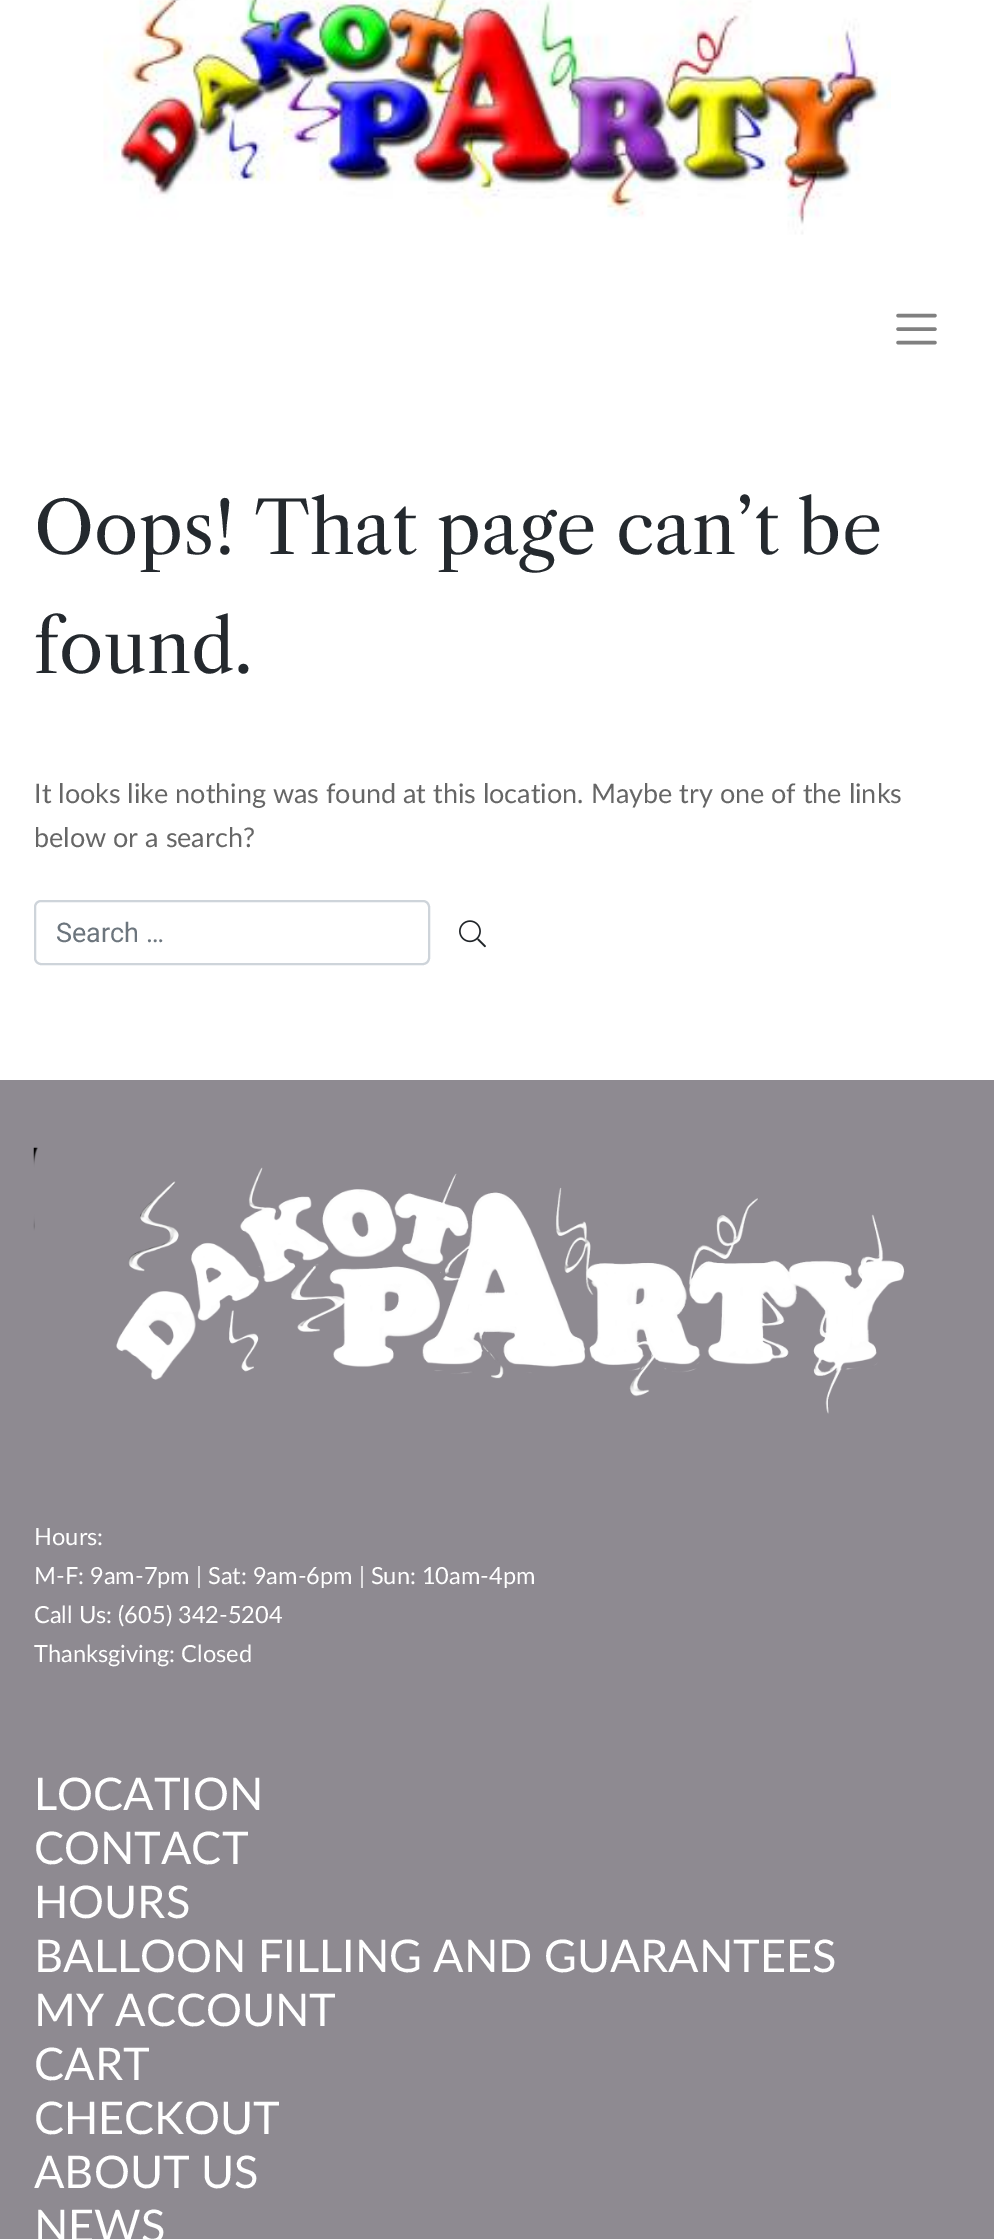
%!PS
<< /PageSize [994 2239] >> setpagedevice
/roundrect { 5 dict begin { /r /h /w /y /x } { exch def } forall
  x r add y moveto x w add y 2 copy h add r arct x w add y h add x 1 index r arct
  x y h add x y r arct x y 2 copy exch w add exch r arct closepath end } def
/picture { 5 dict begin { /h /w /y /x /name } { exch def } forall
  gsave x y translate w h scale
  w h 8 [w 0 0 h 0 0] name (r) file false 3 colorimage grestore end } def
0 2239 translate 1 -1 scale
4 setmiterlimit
1 setgray
0 0 994 2239 rectfill
(img1.rgb) 103 0 788 235 picture
0.502 setgray
3.4 setlinewidth
1 setlinecap
newpath 898 315.5 moveto 935 315.5 lineto 898 329 moveto 935 329 lineto 898 342.5 moveto 935 342.5 lineto stroke
/LibreCaslonText-Regular [72 0 0 -72 0 0] selectfont
0.141 0.161 0.18 setrgbcolor
34 554 moveto (Oops! That page can’t be) show
34 673 moveto (found.) show
/Lato-Regular [27 0 0 -27 0 0] selectfont
0.4 setgray
34 803 moveto (It looks like nothing was found at this location. Maybe try one of the links) show
34 847 moveto (below or a search?) show
0.808 0.831 0.855 setrgbcolor
2 setlinewidth
0 setlinecap
35 901 394 63 6 roundrect stroke
/Roboto-Regular [27 0 0 -27 0 0] selectfont
0.424 0.459 0.49 setrgbcolor
56 942 moveto (Search …) show
(img2.rgb) 459 920 27 28 picture
0.557 0.541 0.569 setrgbcolor
0 1080 994 1159 rectfill
(img3.rgb) 33 1147 872 267 picture
/Lato-Regular [23.6 0 0 -23.6 0 0] selectfont
1 setgray
34 1545 moveto (Hours:) show
34 1584 moveto (M-F: 9am-7pm | Sat: 9am-6pm | Sun: 10am-4pm) show
34 1623 moveto (Call Us: \(605\) 342-5204) show
34 1662 moveto (Thanksgiving: Closed) show
/Lato-Regular [45 0 0 -45 0 0] selectfont
34 1810 moveto (LOCATION) show
34 1864 moveto (CONTACT) show
34 1918 moveto (HOURS) show
34 1972 moveto (BALLOON FILLING AND GUARANTEES) show
34 2026 moveto (MY ACCOUNT) show
34 2080 moveto (CART) show
34 2134 moveto (CHECKOUT) show
34 2188 moveto (ABOUT US) show
34 2242 moveto (NEWS) show
showpage
